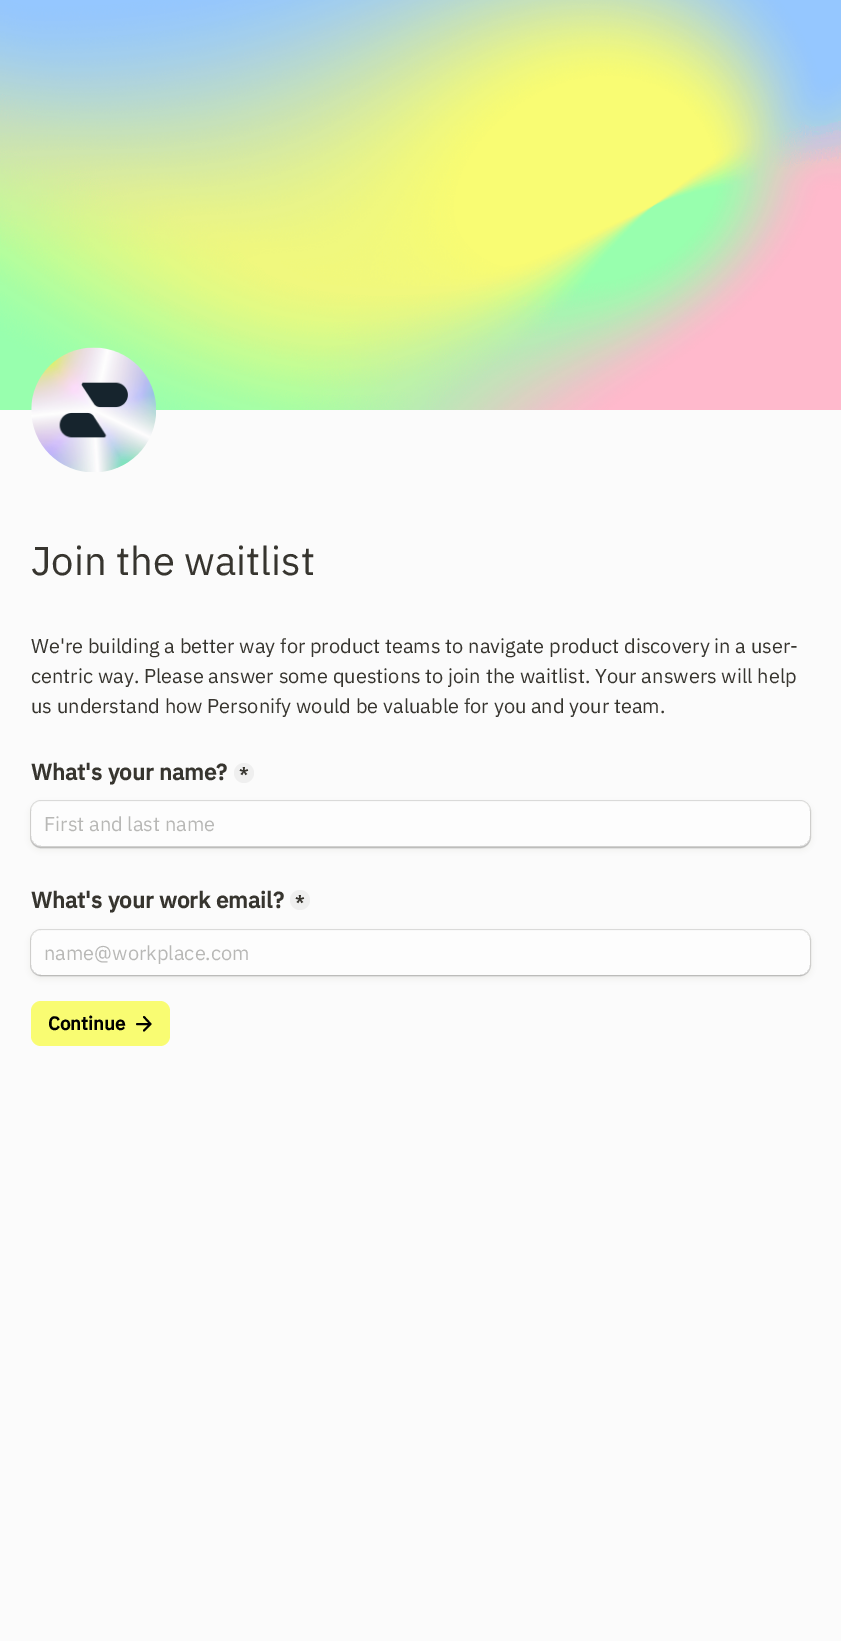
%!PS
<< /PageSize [841 1641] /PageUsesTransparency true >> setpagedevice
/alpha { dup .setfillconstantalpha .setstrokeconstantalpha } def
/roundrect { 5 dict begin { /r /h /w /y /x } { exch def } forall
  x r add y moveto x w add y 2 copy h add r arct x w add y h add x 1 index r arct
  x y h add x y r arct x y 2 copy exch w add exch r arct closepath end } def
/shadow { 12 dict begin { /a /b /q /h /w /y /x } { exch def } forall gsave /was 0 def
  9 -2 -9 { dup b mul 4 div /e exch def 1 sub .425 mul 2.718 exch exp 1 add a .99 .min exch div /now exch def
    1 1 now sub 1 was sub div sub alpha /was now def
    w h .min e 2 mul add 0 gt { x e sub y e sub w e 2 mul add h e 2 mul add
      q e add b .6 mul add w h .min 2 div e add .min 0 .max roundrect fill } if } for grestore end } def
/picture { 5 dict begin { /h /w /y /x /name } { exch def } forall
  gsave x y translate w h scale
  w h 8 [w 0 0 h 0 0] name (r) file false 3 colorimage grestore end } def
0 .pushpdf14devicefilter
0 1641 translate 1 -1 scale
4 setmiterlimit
0.984 setgray
0 0 841 1641 rectfill
(img1.rgb) 0 0 841 410 picture
(img2.rgb) 31 347 125 125 picture
/IBMPlexSans-Regular [40 0 0 -40 0 0] selectfont
0.216 0.208 0.184 setrgbcolor
31 575 moveto (Join the waitlist) show
/IBMPlexSans-Regular [20 0 0 -20 0 0] selectfont
31 653 moveto (We're building a better way for product teams to navigate product discovery in a user-) show
31 683 moveto (centric way. Please answer some questions to join the waitlist. Your answers will help) show
31 713 moveto (us understand how Personify would be valuable for you and your team.) show
/IBMPlexSans-Bold [22.5 0 0 -22.5 0 0] selectfont
31 780 moveto (What's your name?) show
0.937 setgray
newpath 244 773 10 0 360 arc closepath fill
/IBMPlexSans-Bold [18 0 0 -18 0 0] selectfont
0.216 0.208 0.184 setrgbcolor
239 781 moveto (*) show
gsave
newpath 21 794 moveto 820 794 lineto 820 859 lineto 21 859 lineto closepath 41 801 moveto 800 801 lineto 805.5 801 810 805.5 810 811 curveto 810 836 lineto 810 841.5 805.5 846 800 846 curveto 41 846 lineto 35.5 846 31 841.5 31 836 curveto 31 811 lineto 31 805.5 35.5 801 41 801 curveto closepath eoclip newpath
0.239 0.231 0.208 setrgbcolor
31 804 779 45 10 3 0.08 shadow
grestore
0.16 alpha
0.239 0.231 0.208 setrgbcolor
30.5 800.5 780 47 10.5 roundrect stroke
gsave
newpath 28 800 moveto 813 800 lineto 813 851 lineto 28 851 lineto closepath 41 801 moveto 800 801 lineto 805.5 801 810 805.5 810 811 curveto 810 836 lineto 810 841.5 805.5 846 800 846 curveto 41 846 lineto 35.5 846 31 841.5 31 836 curveto 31 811 lineto 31 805.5 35.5 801 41 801 curveto closepath eoclip newpath
1 alpha
0 setgray
31 803 779 45 10 0.5 0.12 shadow
grestore
0.5 alpha
1 setgray
31 801 779 45 10 roundrect fill
/IBMPlexSans-Regular [20 0 0 -20 0 0] selectfont
1 alpha
0.722 0.722 0.714 setrgbcolor
44 831 moveto (First and last name) show
/IBMPlexSans-Bold [22.5 0 0 -22.5 0 0] selectfont
0.216 0.208 0.184 setrgbcolor
31 908 moveto (What's your work email?) show
0.937 setgray
newpath 300 900 10 0 360 arc closepath fill
/IBMPlexSans-Bold [18 0 0 -18 0 0] selectfont
0.216 0.208 0.184 setrgbcolor
295 909 moveto (*) show
gsave
newpath 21 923 moveto 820 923 lineto 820 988 lineto 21 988 lineto closepath 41 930 moveto 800 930 lineto 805.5 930 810 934.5 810 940 curveto 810 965 lineto 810 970.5 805.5 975 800 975 curveto 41 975 lineto 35.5 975 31 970.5 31 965 curveto 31 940 lineto 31 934.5 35.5 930 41 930 curveto closepath eoclip newpath
0.239 0.231 0.208 setrgbcolor
31 933 779 45 10 3 0.08 shadow
grestore
0.16 alpha
0.239 0.231 0.208 setrgbcolor
30.5 929.5 780 46 10.5 roundrect stroke
gsave
newpath 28 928 moveto 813 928 lineto 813 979 lineto 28 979 lineto closepath 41 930 moveto 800 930 lineto 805.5 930 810 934.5 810 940 curveto 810 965 lineto 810 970.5 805.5 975 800 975 curveto 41 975 lineto 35.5 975 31 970.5 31 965 curveto 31 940 lineto 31 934.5 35.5 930 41 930 curveto closepath eoclip newpath
1 alpha
0 setgray
31 931 779 45 10 0.5 0.12 shadow
grestore
0.5 alpha
1 setgray
31 930 779 45 10 roundrect fill
/IBMPlexSans-Regular [20 0 0 -20 0 0] selectfont
1 alpha
0.722 0.722 0.714 setrgbcolor
44 960 moveto (name@workplace.com) show
0.976 0.988 0.447 setrgbcolor
31 1001 139 45 10 roundrect fill
/IBMPlexSans-Bold [18.75 0 0 -18.75 0 0] selectfont
0 setgray
48 1030 moveto (Continue) show
1.9 setlinewidth
1 setlinecap
1 setlinejoin
newpath 137 1024 moveto 150.5 1024 lineto 144 1017 moveto 150.5 1024 lineto 144 1030.5 lineto stroke
.poppdf14devicefilter showpage
